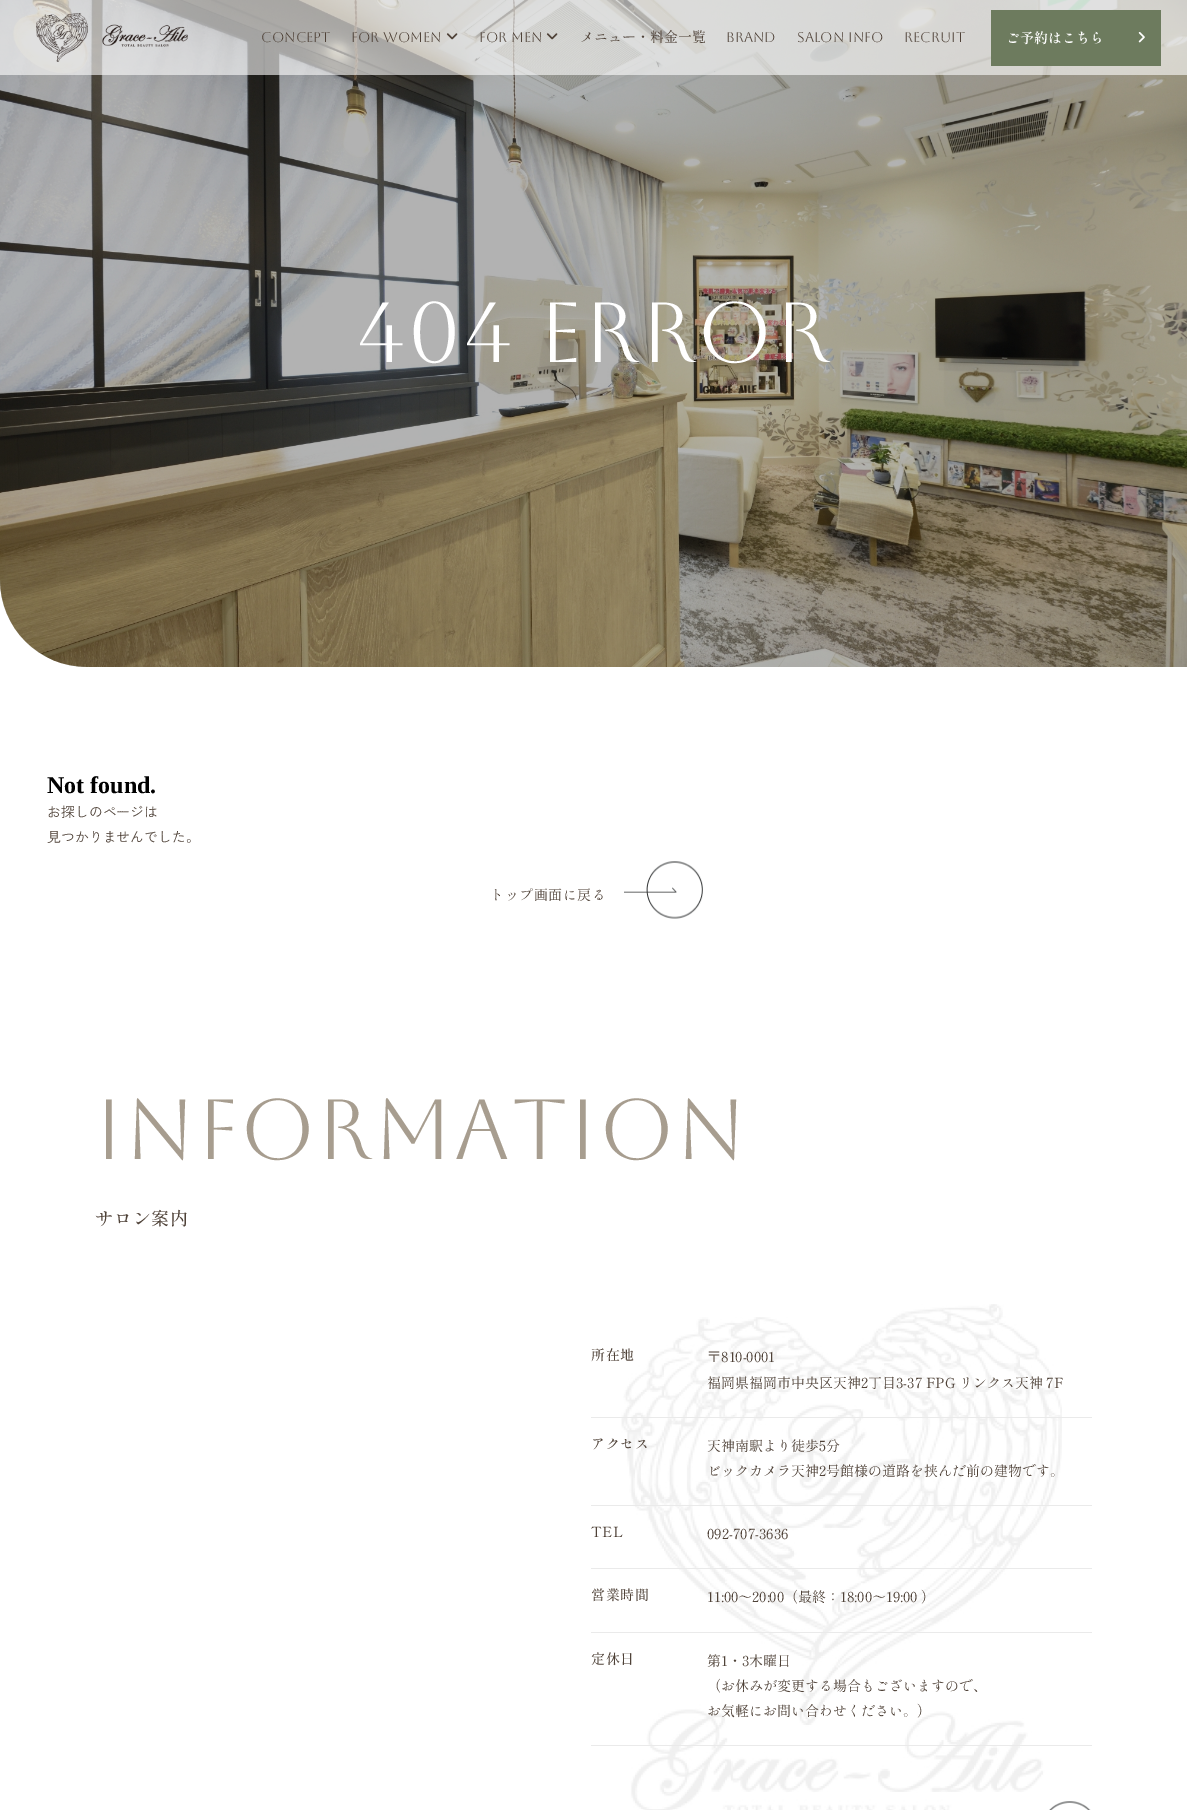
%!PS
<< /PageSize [1187 1810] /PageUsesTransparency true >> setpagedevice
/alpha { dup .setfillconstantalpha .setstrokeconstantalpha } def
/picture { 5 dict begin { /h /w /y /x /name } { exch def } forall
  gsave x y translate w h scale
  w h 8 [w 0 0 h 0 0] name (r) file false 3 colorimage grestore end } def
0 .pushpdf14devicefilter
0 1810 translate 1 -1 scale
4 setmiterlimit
1 setgray
0 0 1187 1810 rectfill
(img5.rgb) 0 0 1187 667 picture
0.3 alpha
0 setgray
newpath 0 0 moveto 1187 0 lineto 1187 667 lineto 87 667 lineto 39 667 0 628 0 580 curveto closepath fill
0.6 alpha
1 setgray
0 0 1187 75 rectfill
1 alpha
(img1.rgb) 36 13 152 49 picture
/Aboreto-Regular [14 0 0 -14 0 0] selectfont
0.31 0.259 0.22 setrgbcolor
261 42 moveto (CONCEPT) show
351 42 moveto (For Women) show
(img2.rgb) 446 33 12 7 picture
479 42 moveto (For Men) show
(img3.rgb) 546 33 12 7 picture
/ShipporiMincho-Regular [14 0 0 -14 0 0] selectfont
580 42 moveto (メニュー・料金一覧) show
/Aboreto-Regular [14 0 0 -14 0 0] selectfont
726 42 moveto (BRAND) show
797 42 moveto (SALON INFO) show
904 42 moveto (RECRUIT) show
0.427 0.482 0.369 setrgbcolor
991 10 170 56 rectfill
/ShipporiMincho-SemiBold [14 0 0 -14 0 0] selectfont
1 setgray
1006 43 moveto (ご予約はこちら) show
(img4.rgb) 1138 32 7 11 picture
/Aboreto-Regular [85.25 0 0 -85.25 0 0] selectfont
357 362 moveto 1.75 0 (404 error) ashow
/LiberationSerif-Bold [24 0 0 -24 0 0] selectfont
0 setgray
47 793 moveto (Not found.) show
/ZenKakuGothicNew-Regular [13.9 0 0 -13.9 0 0] selectfont
0.31 0.259 0.22 setrgbcolor
47 817 moveto (お探しのページは) show
47 842 moveto (見つかりませんでした。) show
(img6.rgb) 646 861 57 58 picture
/ShipporiMincho-Regular [14 0 0 -14 0 0] selectfont
490 900 moveto 0.5 0 (トップ画面に戻る) ashow
(img7.rgb) 624 887 53 6 picture
/Aboreto-Regular [85.25 0 0 -85.25 0 0] selectfont
0.655 0.616 0.561 setrgbcolor
95 1159 moveto 1.75 0 (INFORMATION) ashow
/ShipporiMincho-Medium [18 0 0 -18 0 0] selectfont
0.31 0.259 0.22 setrgbcolor
95 1225 moveto 0.75 0 (サロン案内) ashow
(img8.rgb) 621 1304 441 506 picture
0.918 setgray
591 1417 501 1 rectfill
/ShipporiMincho-Medium [14 0 0 -14 0 0] selectfont
0.31 0.259 0.22 setrgbcolor
591 1360 moveto 0.5 0 (所在地) ashow
/ShipporiMincho-Regular [14 0 0 -14 0 0] selectfont
707 1362 moveto (〒810-0001) show
707 1388 moveto (福岡県福岡市中央区天神2丁目3-37 FPG リンクス天神 7F) show
0.918 setgray
591 1505 501 1 rectfill
/ShipporiMincho-Medium [14 0 0 -14 0 0] selectfont
0.31 0.259 0.22 setrgbcolor
591 1449 moveto 0.5 0 (アクセス) ashow
/ShipporiMincho-Regular [14 0 0 -14 0 0] selectfont
707 1451 moveto (天神南駅より徒歩5分) show
707 1476 moveto (ビックカメラ天神2号館様の道路を挟んだ前の建物です。) show
0.918 setgray
591 1568 501 1 rectfill
/ShipporiMincho-Medium [14 0 0 -14 0 0] selectfont
0.31 0.259 0.22 setrgbcolor
591 1537 moveto 0.5 0 (TEL) ashow
/ShipporiMincho-Regular [14 0 0 -14 0 0] selectfont
707 1539 moveto (092-707-3636) show
0.918 setgray
591 1632 501 1 rectfill
/ShipporiMincho-Medium [14 0 0 -14 0 0] selectfont
0.31 0.259 0.22 setrgbcolor
591 1600 moveto 0.5 0 (営業時間) ashow
/ShipporiMincho-Regular [14 0 0 -14 0 0] selectfont
707 1602 moveto (11:00～20:00（最終：18:00～19:00 ）) show
0.918 setgray
591 1745 501 1 rectfill
/ShipporiMincho-Medium [14 0 0 -14 0 0] selectfont
0.31 0.259 0.22 setrgbcolor
591 1664 moveto 0.5 0 (定休日) ashow
/ShipporiMincho-Regular [14 0 0 -14 0 0] selectfont
707 1666 moveto (第1・3木曜日) show
707 1691 moveto (（お休みが変更する場合もございますので、) show
707 1716 moveto (お気軽にお問い合わせください。）) show
(img9.rgb) 1049 1801 42 9 picture
.poppdf14devicefilter showpage
